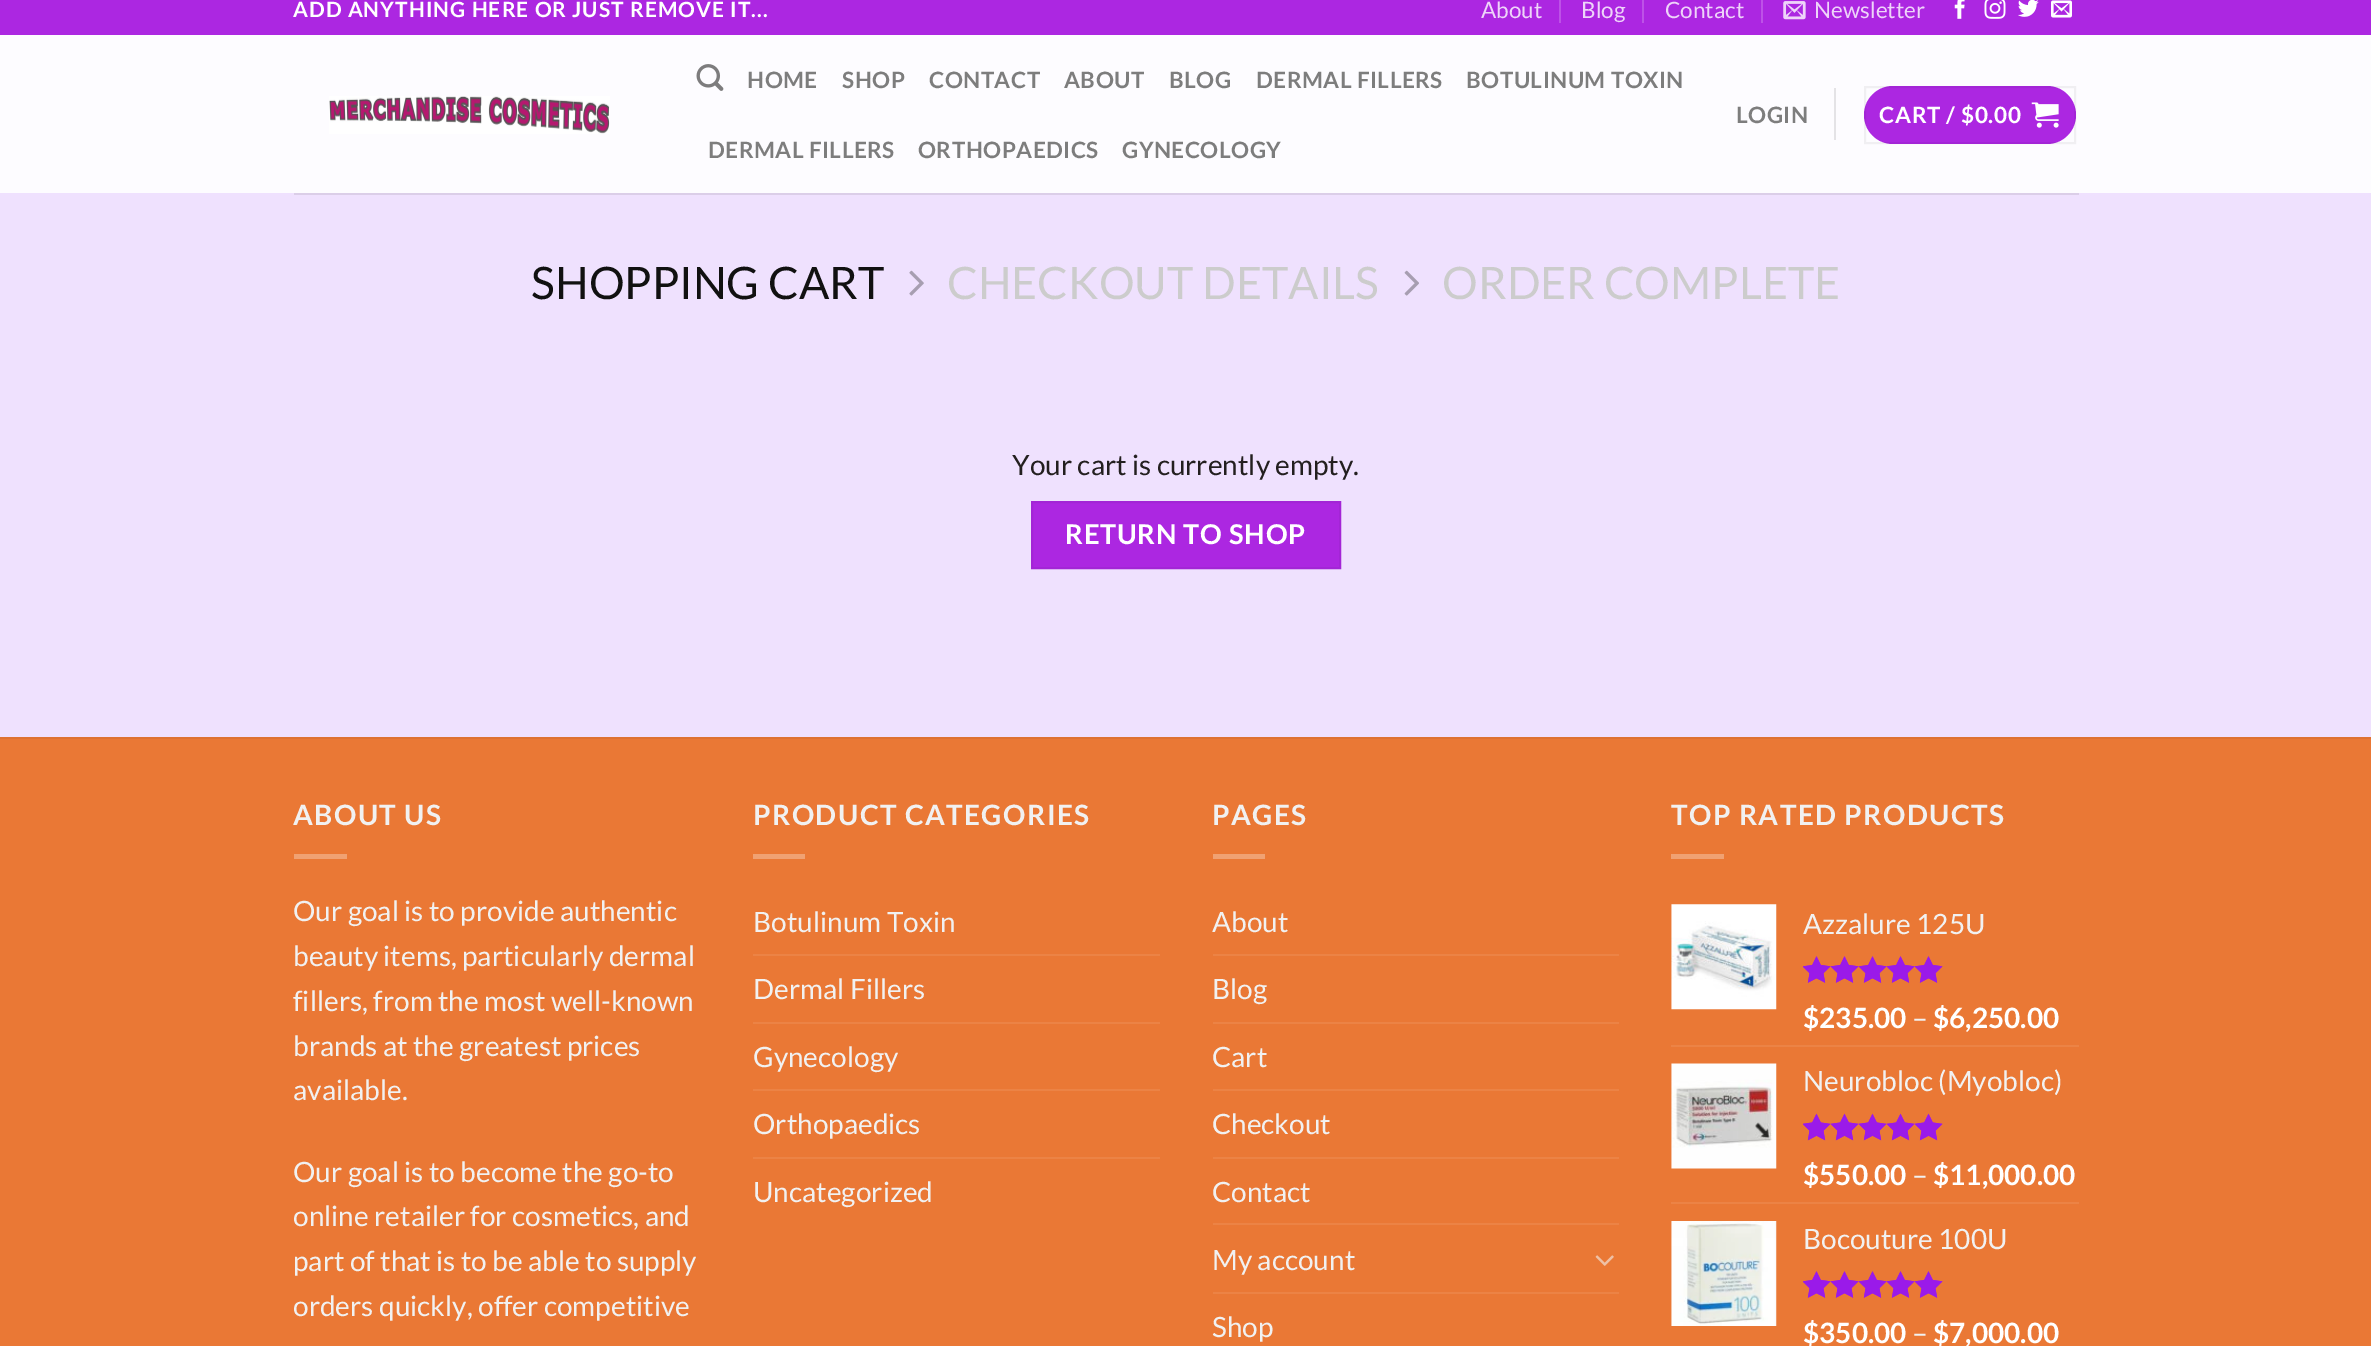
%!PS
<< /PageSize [2371 1346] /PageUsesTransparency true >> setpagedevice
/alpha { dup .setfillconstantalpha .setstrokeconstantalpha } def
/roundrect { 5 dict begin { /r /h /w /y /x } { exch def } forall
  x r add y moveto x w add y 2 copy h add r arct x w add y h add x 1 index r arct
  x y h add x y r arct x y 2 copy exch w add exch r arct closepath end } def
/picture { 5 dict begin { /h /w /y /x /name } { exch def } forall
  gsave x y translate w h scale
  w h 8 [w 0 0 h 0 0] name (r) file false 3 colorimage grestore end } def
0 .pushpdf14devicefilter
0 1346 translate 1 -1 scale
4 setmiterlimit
0.937 0.882 0.996 setrgbcolor
0 0 2371 1346 rectfill
0.675 0.153 0.882 setrgbcolor
0 0 2371 35 rectfill
/Lato-Bold [21 0 0 -21 0 0] selectfont
1 setgray
293 17 moveto 1.05 0 (ADD ANYTHING HERE OR JUST REMOVE IT...) ashow
/Lato-Regular [22.5 0 0 -22.5 0 0] selectfont
0.933 0.831 0.976 setrgbcolor
1481 18 moveto (About) show
0.741 0.322 0.906 setrgbcolor
1559 0 2 23 rectfill
0.933 0.831 0.976 setrgbcolor
1581 18 moveto (Blog) show
0.741 0.322 0.906 setrgbcolor
1642 0 2 23 rectfill
0.933 0.831 0.976 setrgbcolor
1665 18 moveto (Contact) show
0.741 0.322 0.906 setrgbcolor
1761 0 2 23 rectfill
(img1.rgb) 1783 1 23 19 picture
0.933 0.831 0.976 setrgbcolor
1814 18 moveto (Newsletter) show
(img2.rgb) 1954 0 11 19 picture
(img3.rgb) 1984 0 22 19 picture
(img4.rgb) 2018 0 21 17 picture
(img5.rgb) 2051 0 21 18 picture
0.992 0.988 1 setrgbcolor
0 35 2371 158 rectfill
(img6.rgb) 329 96 281 38 picture
(img7.rgb) 696 64 28 27 picture
/Lato-Bold [22.5 0 0 -22.5 0 0] selectfont
0.49 setgray
747 88 moveto 0.5 0 (HOME) ashow
842 88 moveto 0.5 0 (SHOP) ashow
929 88 moveto 0.5 0 (CONTACT) ashow
1064 88 moveto 0.5 0 (ABOUT) ashow
1169 88 moveto 0.5 0 (BLOG) ashow
1256 88 moveto 0.5 0 (DERMAL FILLERS) ashow
1466 88 moveto 0.5 0 (BOTULINUM TOXIN) ashow
708 158 moveto 0.5 0 (DERMAL FILLERS) ashow
918 158 moveto 0.5 0 (ORTHOPAEDICS) ashow
1122 158 moveto 0.5 0 (GYNECOLOGY) ashow
1736 123 moveto 0.5 0 (LOGIN) ashow
0.894 0.89 0.902 setrgbcolor
1834 88 2 52 rectfill
0.675 0.153 0.882 setrgbcolor
1864 86 212 58 29 roundrect fill
0.05 alpha
0 setgray
2 setlinewidth
1865 87 210 56 rectstroke
1 alpha
1 setgray
1879 123 moveto 0.75 0 (CART / $0.00) ashow
(img8.rgb) 2031 102 28 26 picture
0.859 0.808 0.91 setrgbcolor
294 193 1785 2 rectfill
/Lato-Regular [44.75 0 0 -44.75 0 0] selectfont
0.067 setgray
531 299 moveto (SHOPPING CART) show
(img9.rgb) 909 270 15 26 picture
0.8 setgray
947 299 moveto (CHECKOUT DETAILS) show
(img10.rgb) 1404 270 15 26 picture
1442 299 moveto (ORDER COMPLETE) show
/Lato-Regular [28 0 0 -28 0 0] selectfont
0.137 0.122 0.122 setrgbcolor
1012 475 moveto (Your cart is currently empty.) show
0.675 0.153 0.882 setrgbcolor
newpath 1032 502 moveto 1340 502 lineto 1340 568 lineto 1032 568 lineto closepath gsave fill grestore
0.639 0.145 0.839 setrgbcolor
stroke
/Lato-Bold [27.25 0 0 -27.25 0 0] selectfont
1 setgray
1065 544 moveto 0.75 0 (RETURN TO SHOP) ashow
0.918 0.471 0.208 setrgbcolor
0 739 2371 607 rectfill
0.871 0.447 0.196 setrgbcolor
0 737 2371 2 rectfill
/Lato-Bold [28 0 0 -28 0 0] selectfont
0.945 setgray
293 825 moveto 1.4 0 (ABOUT US) ashow
0.941 0.631 0.447 setrgbcolor
294 854 53 5 rectfill
/Lato-Regular [28 0 0 -28 0 0] selectfont
0.945 setgray
293 921 moveto (Our goal is to provide authentic) show
293 966 moveto (beauty items, particularly dermal) show
293 1011 moveto (fillers, from the most well-known) show
293 1056 moveto (brands at the greatest prices) show
293 1100 moveto (available.) show
293 1182 moveto (Our goal is to become the go-to) show
293 1226 moveto (online retailer for cosmetics, and) show
293 1271 moveto (part of that is to be able to supply) show
293 1316 moveto (orders quickly, offer competitive) show
/Lato-Bold [28 0 0 -28 0 0] selectfont
753 825 moveto 1.4 0 (PRODUCT CATEGORIES) ashow
0.941 0.631 0.447 setrgbcolor
753 854 52 5 rectfill
/Lato-Regular [28 0 0 -28 0 0] selectfont
0.945 setgray
753 932 moveto (Botulinum Toxin) show
0.925 0.514 0.271 setrgbcolor
753 954 407 2 rectfill
0.945 setgray
753 999 moveto (Dermal Fillers) show
0.925 0.514 0.271 setrgbcolor
753 1022 407 2 rectfill
0.945 setgray
753 1067 moveto (Gynecology) show
0.925 0.514 0.271 setrgbcolor
753 1089 407 2 rectfill
0.945 setgray
753 1134 moveto (Orthopaedics) show
0.925 0.514 0.271 setrgbcolor
753 1157 407 2 rectfill
0.945 setgray
753 1202 moveto (Uncategorized) show
/Lato-Bold [28 0 0 -28 0 0] selectfont
1212 825 moveto 1.4 0 (PAGES) ashow
0.941 0.631 0.447 setrgbcolor
1213 854 52 5 rectfill
/Lato-Regular [28 0 0 -28 0 0] selectfont
0.945 setgray
1212 932 moveto (About) show
0.925 0.514 0.271 setrgbcolor
1213 954 406 2 rectfill
0.945 setgray
1212 999 moveto (Blog) show
0.925 0.514 0.271 setrgbcolor
1213 1022 406 2 rectfill
0.945 setgray
1212 1067 moveto (Cart) show
0.925 0.514 0.271 setrgbcolor
1213 1089 406 2 rectfill
0.945 setgray
1212 1134 moveto (Checkout) show
0.925 0.514 0.271 setrgbcolor
1213 1157 406 2 rectfill
0.945 setgray
1212 1202 moveto (Contact) show
0.925 0.514 0.271 setrgbcolor
1213 1223 406 2 rectfill
0.945 setgray
1212 1270 moveto (My account) show
(img11.rgb) 1595 1255 19 11 picture
0.925 0.514 0.271 setrgbcolor
1213 1292 406 2 rectfill
0.945 setgray
1212 1337 moveto (Shop) show
/Lato-Bold [28 0 0 -28 0 0] selectfont
1671 825 moveto 1.4 0 (TOP RATED PRODUCTS) ashow
0.941 0.631 0.447 setrgbcolor
1671 854 53 5 rectfill
(img12.rgb) 1671 904 106 106 picture
/Lato-Regular [28 0 0 -28 0 0] selectfont
0.945 setgray
1803 934 moveto (Azzalure 125U) show
(img13.rgb) 1803 956 140 27 picture
(img14.rgb) 1803 956 140 27 picture
/Lato-Bold [28 0 0 -28 0 0] selectfont
1 setgray
1803 1028 moveto ($235.00) show
/Lato-Regular [28 0 0 -28 0 0] selectfont
0.945 setgray
1912 1028 moveto (–) show
/Lato-Bold [28 0 0 -28 0 0] selectfont
1 setgray
1933 1028 moveto ($6,250.00) show
0.925 0.514 0.271 setrgbcolor
1671 1045 408 2 rectfill
(img15.rgb) 1671 1063 106 106 picture
/Lato-Regular [28 0 0 -28 0 0] selectfont
0.945 setgray
1803 1091 moveto (Neurobloc \(Myobloc\)) show
(img16.rgb) 1803 1113 140 28 picture
(img17.rgb) 1803 1113 140 28 picture
/Lato-Bold [28 0 0 -28 0 0] selectfont
1 setgray
1803 1185 moveto ($550.00) show
/Lato-Regular [28 0 0 -28 0 0] selectfont
0.945 setgray
1912 1185 moveto (–) show
/Lato-Bold [28 0 0 -28 0 0] selectfont
1 setgray
1933 1185 moveto ($11,000.00) show
0.925 0.514 0.271 setrgbcolor
1671 1202 408 2 rectfill
(img18.rgb) 1671 1221 106 105 picture
/Lato-Regular [28 0 0 -28 0 0] selectfont
0.945 setgray
1803 1249 moveto (Bocouture 100U) show
(img13.rgb) 1803 1271 140 27 picture
(img14.rgb) 1803 1271 140 27 picture
/Lato-Bold [28 0 0 -28 0 0] selectfont
1 setgray
1803 1343 moveto ($350.00) show
/Lato-Regular [28 0 0 -28 0 0] selectfont
0.945 setgray
1912 1343 moveto (–) show
/Lato-Bold [28 0 0 -28 0 0] selectfont
1 setgray
1933 1343 moveto ($7,000.00) show
.poppdf14devicefilter showpage
